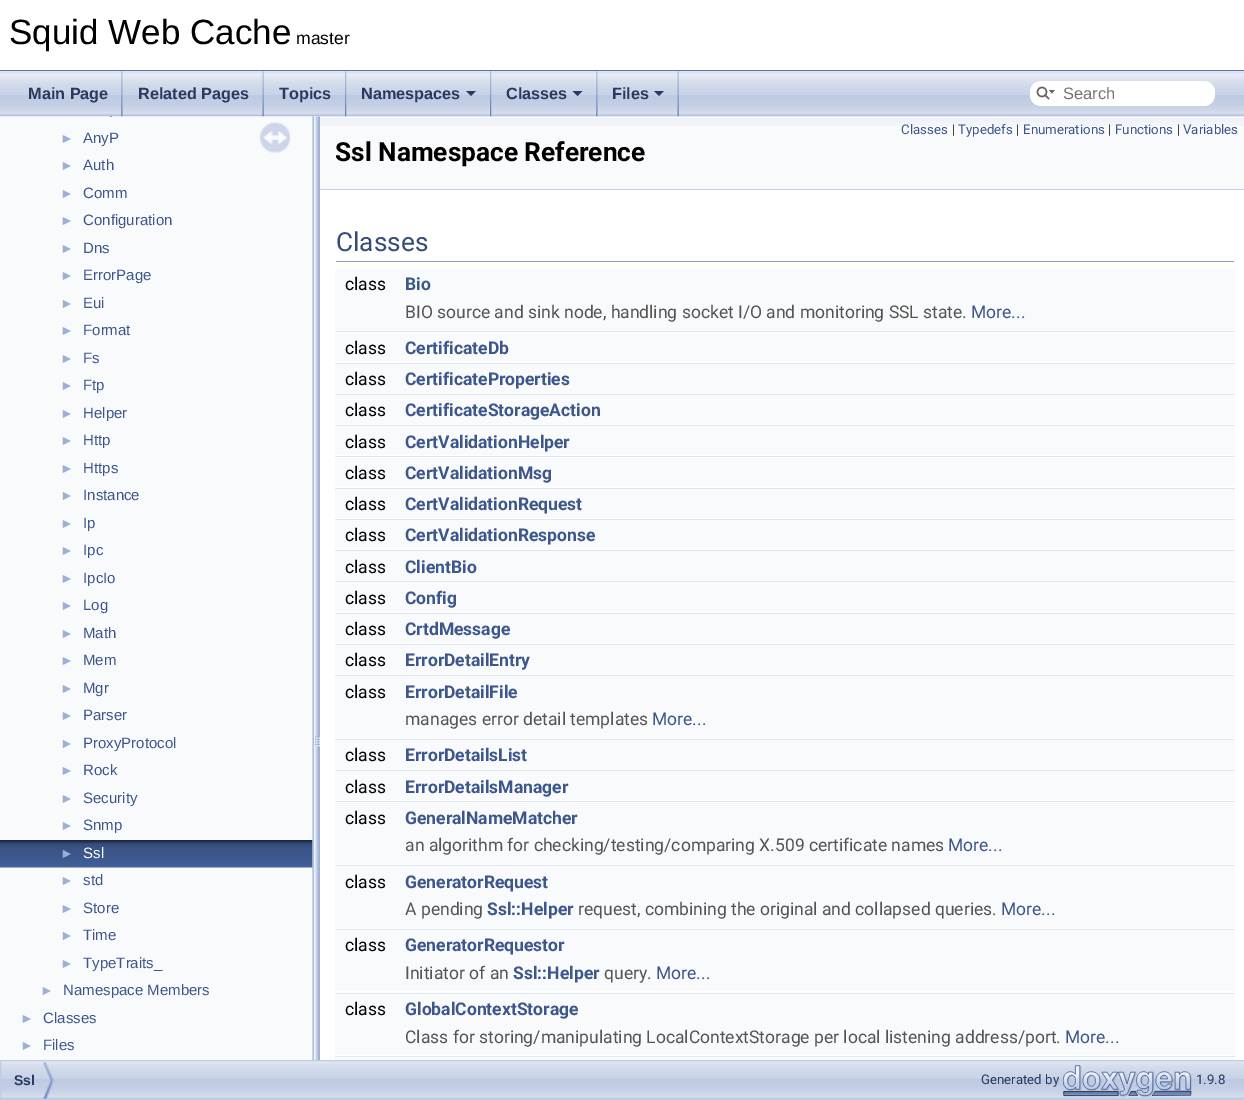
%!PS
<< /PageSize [1244 1100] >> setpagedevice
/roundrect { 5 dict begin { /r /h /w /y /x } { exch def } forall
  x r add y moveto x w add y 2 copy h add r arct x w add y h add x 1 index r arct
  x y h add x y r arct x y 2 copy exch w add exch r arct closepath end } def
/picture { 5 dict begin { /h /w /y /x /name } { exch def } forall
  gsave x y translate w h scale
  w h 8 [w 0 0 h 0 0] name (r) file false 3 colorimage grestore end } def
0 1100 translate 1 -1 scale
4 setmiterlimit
1 setgray
0 0 1244 1100 rectfill
0.325 0.451 0.706 setrgbcolor
0 70 1244 1 rectfill
/LiberationSans-Regular [35 0 0 -35 0 0] selectfont
0 setgray
9 44 moveto (Squid Web Cache) show
/LiberationSans-Regular [17.5 0 0 -17.5 0 0] selectfont
296 44 moveto (master) show
0.976 0.98 0.988 setrgbcolor
0 116 313 944 rectfill
(img6.rgb) 0 840 313 28 picture
(img8.rgb) 312 116 8 944 picture
320 116 924 73 rectfill
(img1.rgb) 0 71 1244 46 picture
(img2.rgb) 121 71 2 46 picture
/LiberationSans-Bold [16.25 0 0 -16.25 0 0] selectfont
0.157 0.227 0.365 setrgbcolor
28 99 moveto (Main Page) show
(img3.rgb) 262 71 2 46 picture
138 99 moveto (Related Pages) show
(img4.rgb) 345 71 2 46 picture
279 99 moveto (Topics) show
(img4.rgb) 490 71 2 46 picture
361 99 moveto (Namespaces) show
newpath 466 91 moveto 476 91 lineto 471 96 lineto closepath fill
(img2.rgb) 596 71 2 46 picture
506 99 moveto (Classes) show
newpath 572.5 91 moveto 582.5 91 lineto 577.5 96 lineto closepath fill
(img3.rgb) 677 71 2 46 picture
612 99 moveto (Files) show
newpath 654 91 moveto 664 91 lineto 659 96 lineto closepath fill
1 setgray
1030 81 185 25 11 roundrect fill
(img5.rgb) 1036 86 19 14 picture
/LiberationSans-Regular [16.5 0 0 -16.5 0 0] selectfont
0.459 setgray
1063 99 moveto (Search) show
/LiberationSans-Regular [14 0 0 -14 0 0] selectfont
0.612 0.686 0.831 setrgbcolor
60 143 moveto (►) show
/LiberationSans-Regular [15 0 0 -15 0 0] selectfont
0.239 0.341 0.549 setrgbcolor
83 143 moveto (AnyP) show
/LiberationSans-Regular [14 0 0 -14 0 0] selectfont
0.612 0.686 0.831 setrgbcolor
60 170 moveto (►) show
/LiberationSans-Regular [15 0 0 -15 0 0] selectfont
0.239 0.341 0.549 setrgbcolor
83 170 moveto (Auth) show
/LiberationSans-Regular [14 0 0 -14 0 0] selectfont
0.612 0.686 0.831 setrgbcolor
60 198 moveto (►) show
/LiberationSans-Regular [15 0 0 -15 0 0] selectfont
0.239 0.341 0.549 setrgbcolor
83 198 moveto (Comm) show
/LiberationSans-Regular [14 0 0 -14 0 0] selectfont
0.612 0.686 0.831 setrgbcolor
60 225 moveto (►) show
/LiberationSans-Regular [15 0 0 -15 0 0] selectfont
0.239 0.341 0.549 setrgbcolor
83 225 moveto (Configuration) show
/LiberationSans-Regular [14 0 0 -14 0 0] selectfont
0.612 0.686 0.831 setrgbcolor
60 253 moveto (►) show
/LiberationSans-Regular [15 0 0 -15 0 0] selectfont
0.239 0.341 0.549 setrgbcolor
83 253 moveto (Dns) show
/LiberationSans-Regular [14 0 0 -14 0 0] selectfont
0.612 0.686 0.831 setrgbcolor
60 280 moveto (►) show
/LiberationSans-Regular [15 0 0 -15 0 0] selectfont
0.239 0.341 0.549 setrgbcolor
83 280 moveto (ErrorPage) show
/LiberationSans-Regular [14 0 0 -14 0 0] selectfont
0.612 0.686 0.831 setrgbcolor
60 308 moveto (►) show
/LiberationSans-Regular [15 0 0 -15 0 0] selectfont
0.239 0.341 0.549 setrgbcolor
83 308 moveto (Eui) show
/LiberationSans-Regular [14 0 0 -14 0 0] selectfont
0.612 0.686 0.831 setrgbcolor
60 335 moveto (►) show
/LiberationSans-Regular [15 0 0 -15 0 0] selectfont
0.239 0.341 0.549 setrgbcolor
83 335 moveto (Format) show
/LiberationSans-Regular [14 0 0 -14 0 0] selectfont
0.612 0.686 0.831 setrgbcolor
60 363 moveto (►) show
/LiberationSans-Regular [15 0 0 -15 0 0] selectfont
0.239 0.341 0.549 setrgbcolor
83 363 moveto (Fs) show
/LiberationSans-Regular [14 0 0 -14 0 0] selectfont
0.612 0.686 0.831 setrgbcolor
60 390 moveto (►) show
/LiberationSans-Regular [15 0 0 -15 0 0] selectfont
0.239 0.341 0.549 setrgbcolor
83 390 moveto (Ftp) show
/LiberationSans-Regular [14 0 0 -14 0 0] selectfont
0.612 0.686 0.831 setrgbcolor
60 418 moveto (►) show
/LiberationSans-Regular [15 0 0 -15 0 0] selectfont
0.239 0.341 0.549 setrgbcolor
83 418 moveto (Helper) show
/LiberationSans-Regular [14 0 0 -14 0 0] selectfont
0.612 0.686 0.831 setrgbcolor
60 445 moveto (►) show
/LiberationSans-Regular [15 0 0 -15 0 0] selectfont
0.239 0.341 0.549 setrgbcolor
83 445 moveto (Http) show
/LiberationSans-Regular [14 0 0 -14 0 0] selectfont
0.612 0.686 0.831 setrgbcolor
60 473 moveto (►) show
/LiberationSans-Regular [15 0 0 -15 0 0] selectfont
0.239 0.341 0.549 setrgbcolor
83 473 moveto (Https) show
/LiberationSans-Regular [14 0 0 -14 0 0] selectfont
0.612 0.686 0.831 setrgbcolor
60 500 moveto (►) show
/LiberationSans-Regular [15 0 0 -15 0 0] selectfont
0.239 0.341 0.549 setrgbcolor
83 500 moveto (Instance) show
/LiberationSans-Regular [14 0 0 -14 0 0] selectfont
0.612 0.686 0.831 setrgbcolor
60 528 moveto (►) show
/LiberationSans-Regular [15 0 0 -15 0 0] selectfont
0.239 0.341 0.549 setrgbcolor
83 528 moveto (Ip) show
/LiberationSans-Regular [14 0 0 -14 0 0] selectfont
0.612 0.686 0.831 setrgbcolor
60 555 moveto (►) show
/LiberationSans-Regular [15 0 0 -15 0 0] selectfont
0.239 0.341 0.549 setrgbcolor
83 555 moveto (Ipc) show
/LiberationSans-Regular [14 0 0 -14 0 0] selectfont
0.612 0.686 0.831 setrgbcolor
60 583 moveto (►) show
/LiberationSans-Regular [15 0 0 -15 0 0] selectfont
0.239 0.341 0.549 setrgbcolor
83 583 moveto (IpcIo) show
/LiberationSans-Regular [14 0 0 -14 0 0] selectfont
0.612 0.686 0.831 setrgbcolor
60 610 moveto (►) show
/LiberationSans-Regular [15 0 0 -15 0 0] selectfont
0.239 0.341 0.549 setrgbcolor
83 610 moveto (Log) show
/LiberationSans-Regular [14 0 0 -14 0 0] selectfont
0.612 0.686 0.831 setrgbcolor
60 638 moveto (►) show
/LiberationSans-Regular [15 0 0 -15 0 0] selectfont
0.239 0.341 0.549 setrgbcolor
83 638 moveto (Math) show
/LiberationSans-Regular [14 0 0 -14 0 0] selectfont
0.612 0.686 0.831 setrgbcolor
60 665 moveto (►) show
/LiberationSans-Regular [15 0 0 -15 0 0] selectfont
0.239 0.341 0.549 setrgbcolor
83 665 moveto (Mem) show
/LiberationSans-Regular [14 0 0 -14 0 0] selectfont
0.612 0.686 0.831 setrgbcolor
60 693 moveto (►) show
/LiberationSans-Regular [15 0 0 -15 0 0] selectfont
0.239 0.341 0.549 setrgbcolor
83 693 moveto (Mgr) show
/LiberationSans-Regular [14 0 0 -14 0 0] selectfont
0.612 0.686 0.831 setrgbcolor
60 720 moveto (►) show
/LiberationSans-Regular [15 0 0 -15 0 0] selectfont
0.239 0.341 0.549 setrgbcolor
83 720 moveto (Parser) show
/LiberationSans-Regular [14 0 0 -14 0 0] selectfont
0.612 0.686 0.831 setrgbcolor
60 748 moveto (►) show
/LiberationSans-Regular [15 0 0 -15 0 0] selectfont
0.239 0.341 0.549 setrgbcolor
83 748 moveto (ProxyProtocol) show
/LiberationSans-Regular [14 0 0 -14 0 0] selectfont
0.612 0.686 0.831 setrgbcolor
60 775 moveto (►) show
/LiberationSans-Regular [15 0 0 -15 0 0] selectfont
0.239 0.341 0.549 setrgbcolor
83 775 moveto (Rock) show
/LiberationSans-Regular [14 0 0 -14 0 0] selectfont
0.612 0.686 0.831 setrgbcolor
60 803 moveto (►) show
/LiberationSans-Regular [15 0 0 -15 0 0] selectfont
0.239 0.341 0.549 setrgbcolor
83 803 moveto (Security) show
/LiberationSans-Regular [14 0 0 -14 0 0] selectfont
0.612 0.686 0.831 setrgbcolor
60 830 moveto (►) show
/LiberationSans-Regular [15 0 0 -15 0 0] selectfont
0.239 0.341 0.549 setrgbcolor
83 830 moveto (Snmp) show
/LiberationSans-Regular [14 0 0 -14 0 0] selectfont
0.612 0.686 0.831 setrgbcolor
60 858 moveto (►) show
/LiberationSans-Regular [15 0 0 -15 0 0] selectfont
1 setgray
83 858 moveto (Ssl) show
/LiberationSans-Regular [14 0 0 -14 0 0] selectfont
0.612 0.686 0.831 setrgbcolor
60 885 moveto (►) show
/LiberationSans-Regular [15 0 0 -15 0 0] selectfont
0.239 0.341 0.549 setrgbcolor
83 885 moveto (std) show
/LiberationSans-Regular [14 0 0 -14 0 0] selectfont
0.612 0.686 0.831 setrgbcolor
60 913 moveto (►) show
/LiberationSans-Regular [15 0 0 -15 0 0] selectfont
0.239 0.341 0.549 setrgbcolor
83 913 moveto (Store) show
/LiberationSans-Regular [14 0 0 -14 0 0] selectfont
0.612 0.686 0.831 setrgbcolor
60 940 moveto (►) show
/LiberationSans-Regular [15 0 0 -15 0 0] selectfont
0.239 0.341 0.549 setrgbcolor
83 940 moveto (Time) show
/LiberationSans-Regular [14 0 0 -14 0 0] selectfont
0.612 0.686 0.831 setrgbcolor
60 968 moveto (►) show
/LiberationSans-Regular [15 0 0 -15 0 0] selectfont
0.239 0.341 0.549 setrgbcolor
83 968 moveto (TypeTraits_) show
/LiberationSans-Regular [14 0 0 -14 0 0] selectfont
0.612 0.686 0.831 setrgbcolor
40 995 moveto (►) show
/LiberationSans-Regular [15 0 0 -15 0 0] selectfont
0.239 0.341 0.549 setrgbcolor
63 995 moveto (Namespace Members) show
/LiberationSans-Regular [14 0 0 -14 0 0] selectfont
0.612 0.686 0.831 setrgbcolor
20 1023 moveto (►) show
/LiberationSans-Regular [15 0 0 -15 0 0] selectfont
0.239 0.341 0.549 setrgbcolor
43 1023 moveto (Classes) show
/LiberationSans-Regular [14 0 0 -14 0 0] selectfont
0.612 0.686 0.831 setrgbcolor
20 1050 moveto (►) show
/LiberationSans-Regular [15 0 0 -15 0 0] selectfont
0.239 0.341 0.549 setrgbcolor
43 1050 moveto (Files) show
(img7.rgb) 260 122 30 31 picture
(img9.rgb) 320 118 924 8 picture
0.769 0.812 0.898 setrgbcolor
320 189 924 1 rectfill
/Roboto-Regular [13.25 0 0 -13.25 0 0] selectfont
0.239 0.341 0.549 setrgbcolor
901 134 moveto (Classes) show
0 setgray
952 134 moveto (|) show
0.239 0.341 0.549 setrgbcolor
958 134 moveto (Typedefs) show
0 setgray
1016 134 moveto (|) show
0.239 0.341 0.549 setrgbcolor
1023 134 moveto (Enumerations) show
0 setgray
1108 134 moveto (|) show
0.239 0.341 0.549 setrgbcolor
1115 134 moveto (Functions) show
0 setgray
1177 134 moveto (|) show
0.239 0.341 0.549 setrgbcolor
1183 134 moveto (Variables) show
/Roboto-Bold [26.25 0 0 -26.25 0 0] selectfont
0 setgray
335 161 moveto (Ssl Namespace Reference) show
0.529 0.62 0.796 setrgbcolor
336 261 898 1 rectfill
/Roboto-Regular [26.25 0 0 -26.25 0 0] selectfont
0.208 0.298 0.482 setrgbcolor
336 251 moveto (Classes) show
0.976 0.98 0.988 setrgbcolor
335 269 900 29 rectfill
/Roboto-Regular [17.5 0 0 -17.5 0 0] selectfont
0 setgray
345 290 moveto (class) show
/Roboto-Bold [17.5 0 0 -17.5 0 0] selectfont
0.239 0.341 0.549 setrgbcolor
405 290 moveto (Bio) show
0.976 0.98 0.988 setrgbcolor
335 298 900 32 rectfill
/Roboto-Regular [17.5 0 0 -17.5 0 0] selectfont
0.333 setgray
405 318 moveto (BIO source and sink node, handling socket I/O and monitoring SSL state.) show
0.239 0.341 0.549 setrgbcolor
971 318 moveto (More...) show
0.871 0.894 0.941 setrgbcolor
335 331 900 1 rectfill
0.976 0.98 0.988 setrgbcolor
335 333 900 28 rectfill
0 setgray
345 354 moveto (class) show
/Roboto-Bold [17.5 0 0 -17.5 0 0] selectfont
0.239 0.341 0.549 setrgbcolor
405 354 moveto (CertificateDb) show
0.871 0.894 0.941 setrgbcolor
335 363 900 1 rectfill
0.976 0.98 0.988 setrgbcolor
335 364 900 29 rectfill
/Roboto-Regular [17.5 0 0 -17.5 0 0] selectfont
0 setgray
345 385 moveto (class) show
/Roboto-Bold [17.5 0 0 -17.5 0 0] selectfont
0.239 0.341 0.549 setrgbcolor
405 385 moveto (CertificateProperties) show
0.871 0.894 0.941 setrgbcolor
335 394 900 1 rectfill
0.976 0.98 0.988 setrgbcolor
335 395 900 29 rectfill
/Roboto-Regular [17.5 0 0 -17.5 0 0] selectfont
0 setgray
345 416 moveto (class) show
/Roboto-Bold [17.5 0 0 -17.5 0 0] selectfont
0.239 0.341 0.549 setrgbcolor
405 416 moveto (CertificateStorageAction) show
0.871 0.894 0.941 setrgbcolor
335 425 900 1 rectfill
0.976 0.98 0.988 setrgbcolor
335 426 900 29 rectfill
/Roboto-Regular [17.5 0 0 -17.5 0 0] selectfont
0 setgray
345 448 moveto (class) show
/Roboto-Bold [17.5 0 0 -17.5 0 0] selectfont
0.239 0.341 0.549 setrgbcolor
405 448 moveto (CertValidationHelper) show
0.871 0.894 0.941 setrgbcolor
335 456 900 1 rectfill
0.976 0.98 0.988 setrgbcolor
335 458 900 28 rectfill
/Roboto-Regular [17.5 0 0 -17.5 0 0] selectfont
0 setgray
345 479 moveto (class) show
/Roboto-Bold [17.5 0 0 -17.5 0 0] selectfont
0.239 0.341 0.549 setrgbcolor
405 479 moveto (CertValidationMsg) show
0.871 0.894 0.941 setrgbcolor
335 488 900 1 rectfill
0.976 0.98 0.988 setrgbcolor
335 489 900 29 rectfill
/Roboto-Regular [17.5 0 0 -17.5 0 0] selectfont
0 setgray
345 510 moveto (class) show
/Roboto-Bold [17.5 0 0 -17.5 0 0] selectfont
0.239 0.341 0.549 setrgbcolor
405 510 moveto (CertValidationRequest) show
0.871 0.894 0.941 setrgbcolor
335 519 900 1 rectfill
0.976 0.98 0.988 setrgbcolor
335 520 900 29 rectfill
/Roboto-Regular [17.5 0 0 -17.5 0 0] selectfont
0 setgray
345 541 moveto (class) show
/Roboto-Bold [17.5 0 0 -17.5 0 0] selectfont
0.239 0.341 0.549 setrgbcolor
405 541 moveto (CertValidationResponse) show
0.871 0.894 0.941 setrgbcolor
335 550 900 1 rectfill
0.976 0.98 0.988 setrgbcolor
335 551 900 29 rectfill
/Roboto-Regular [17.5 0 0 -17.5 0 0] selectfont
0 setgray
345 573 moveto (class) show
/Roboto-Bold [17.5 0 0 -17.5 0 0] selectfont
0.239 0.341 0.549 setrgbcolor
405 573 moveto (ClientBio) show
0.871 0.894 0.941 setrgbcolor
335 581 900 1 rectfill
0.976 0.98 0.988 setrgbcolor
335 583 900 28 rectfill
/Roboto-Regular [17.5 0 0 -17.5 0 0] selectfont
0 setgray
345 604 moveto (class) show
/Roboto-Bold [17.5 0 0 -17.5 0 0] selectfont
0.239 0.341 0.549 setrgbcolor
405 604 moveto (Config) show
0.871 0.894 0.941 setrgbcolor
335 613 900 1 rectfill
0.976 0.98 0.988 setrgbcolor
335 614 900 29 rectfill
/Roboto-Regular [17.5 0 0 -17.5 0 0] selectfont
0 setgray
345 635 moveto (class) show
/Roboto-Bold [17.5 0 0 -17.5 0 0] selectfont
0.239 0.341 0.549 setrgbcolor
405 635 moveto (CrtdMessage) show
0.871 0.894 0.941 setrgbcolor
335 644 900 1 rectfill
0.976 0.98 0.988 setrgbcolor
335 645 900 29 rectfill
/Roboto-Regular [17.5 0 0 -17.5 0 0] selectfont
0 setgray
345 666 moveto (class) show
/Roboto-Bold [17.5 0 0 -17.5 0 0] selectfont
0.239 0.341 0.549 setrgbcolor
405 666 moveto (ErrorDetailEntry) show
0.871 0.894 0.941 setrgbcolor
335 675 900 1 rectfill
0.976 0.98 0.988 setrgbcolor
335 676 900 29 rectfill
/Roboto-Regular [17.5 0 0 -17.5 0 0] selectfont
0 setgray
345 698 moveto (class) show
/Roboto-Bold [17.5 0 0 -17.5 0 0] selectfont
0.239 0.341 0.549 setrgbcolor
405 698 moveto (ErrorDetailFile) show
0.976 0.98 0.988 setrgbcolor
335 705 900 33 rectfill
/Roboto-Regular [17.5 0 0 -17.5 0 0] selectfont
0.333 setgray
405 725 moveto (manages error detail templates) show
0.239 0.341 0.549 setrgbcolor
652 725 moveto (More...) show
0.871 0.894 0.941 setrgbcolor
335 739 900 1 rectfill
0.976 0.98 0.988 setrgbcolor
335 740 900 29 rectfill
0 setgray
345 761 moveto (class) show
/Roboto-Bold [17.5 0 0 -17.5 0 0] selectfont
0.239 0.341 0.549 setrgbcolor
405 761 moveto (ErrorDetailsList) show
0.871 0.894 0.941 setrgbcolor
335 770 900 1 rectfill
0.976 0.98 0.988 setrgbcolor
335 771 900 29 rectfill
/Roboto-Regular [17.5 0 0 -17.5 0 0] selectfont
0 setgray
345 793 moveto (class) show
/Roboto-Bold [17.5 0 0 -17.5 0 0] selectfont
0.239 0.341 0.549 setrgbcolor
405 793 moveto (ErrorDetailsManager) show
0.871 0.894 0.941 setrgbcolor
335 801 900 1 rectfill
0.976 0.98 0.988 setrgbcolor
335 803 900 28 rectfill
/Roboto-Regular [17.5 0 0 -17.5 0 0] selectfont
0 setgray
345 824 moveto (class) show
/Roboto-Bold [17.5 0 0 -17.5 0 0] selectfont
0.239 0.341 0.549 setrgbcolor
405 824 moveto (GeneralNameMatcher) show
0.976 0.98 0.988 setrgbcolor
335 831 900 33 rectfill
/Roboto-Regular [17.5 0 0 -17.5 0 0] selectfont
0.333 setgray
405 851 moveto (an algorithm for checking/testing/comparing X.509 certificate names) show
0.239 0.341 0.549 setrgbcolor
948 851 moveto (More...) show
0.871 0.894 0.941 setrgbcolor
335 865 900 1 rectfill
0.976 0.98 0.988 setrgbcolor
335 866 900 29 rectfill
0 setgray
345 888 moveto (class) show
/Roboto-Bold [17.5 0 0 -17.5 0 0] selectfont
0.239 0.341 0.549 setrgbcolor
405 888 moveto (GeneratorRequest) show
0.976 0.98 0.988 setrgbcolor
335 895 900 33 rectfill
/Roboto-Regular [17.5 0 0 -17.5 0 0] selectfont
0.333 setgray
405 915 moveto (A pending) show
/Roboto-Bold [17.5 0 0 -17.5 0 0] selectfont
0.239 0.341 0.549 setrgbcolor
487 915 moveto (Ssl::Helper) show
/Roboto-Regular [17.5 0 0 -17.5 0 0] selectfont
0.333 setgray
578 915 moveto (request, combining the original and collapsed queries.) show
0.239 0.341 0.549 setrgbcolor
1001 915 moveto (More...) show
0.871 0.894 0.941 setrgbcolor
335 929 900 1 rectfill
0.976 0.98 0.988 setrgbcolor
335 930 900 29 rectfill
0 setgray
345 951 moveto (class) show
/Roboto-Bold [17.5 0 0 -17.5 0 0] selectfont
0.239 0.341 0.549 setrgbcolor
405 951 moveto (GeneratorRequestor) show
0.976 0.98 0.988 setrgbcolor
335 959 900 32 rectfill
/Roboto-Regular [17.5 0 0 -17.5 0 0] selectfont
0.333 setgray
405 979 moveto (Initiator of an) show
/Roboto-Bold [17.5 0 0 -17.5 0 0] selectfont
0.239 0.341 0.549 setrgbcolor
513 979 moveto (Ssl::Helper) show
/Roboto-Regular [17.5 0 0 -17.5 0 0] selectfont
0.333 setgray
604 979 moveto (query.) show
0.239 0.341 0.549 setrgbcolor
656 979 moveto (More...) show
0.871 0.894 0.941 setrgbcolor
335 993 900 1 rectfill
0.976 0.98 0.988 setrgbcolor
335 994 900 29 rectfill
0 setgray
345 1015 moveto (class) show
/Roboto-Bold [17.5 0 0 -17.5 0 0] selectfont
0.239 0.341 0.549 setrgbcolor
405 1015 moveto (GlobalContextStorage) show
0.976 0.98 0.988 setrgbcolor
335 1023 900 32 rectfill
/Roboto-Regular [17.5 0 0 -17.5 0 0] selectfont
0.333 setgray
405 1043 moveto (Class for storing/manipulating LocalContextStorage per local listening address/port.) show
0.239 0.341 0.549 setrgbcolor
1065 1043 moveto (More...) show
0.871 0.894 0.941 setrgbcolor
335 1056 900 1 rectfill
0.976 0.98 0.988 setrgbcolor
335 1058 900 2 rectfill
(img10.rgb) 1 1061 1243 38 picture
0.761 0.804 0.894 setrgbcolor
0.5 1060.5 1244 39 rectstroke
(img11.rgb) 43 1062 11 37 picture
/LiberationSans-Bold [14 0 0 -14 0 0] selectfont
0.157 0.227 0.365 setrgbcolor
14 1085 moveto (Ssl) show
/Roboto-Regular [13.25 0 0 -13.25 0 0] selectfont
981 1084 moveto (Generated by) show
(img12.rgb) 1063 1065 129 33 picture
1196 1084 moveto (1.9.8) show
showpage
